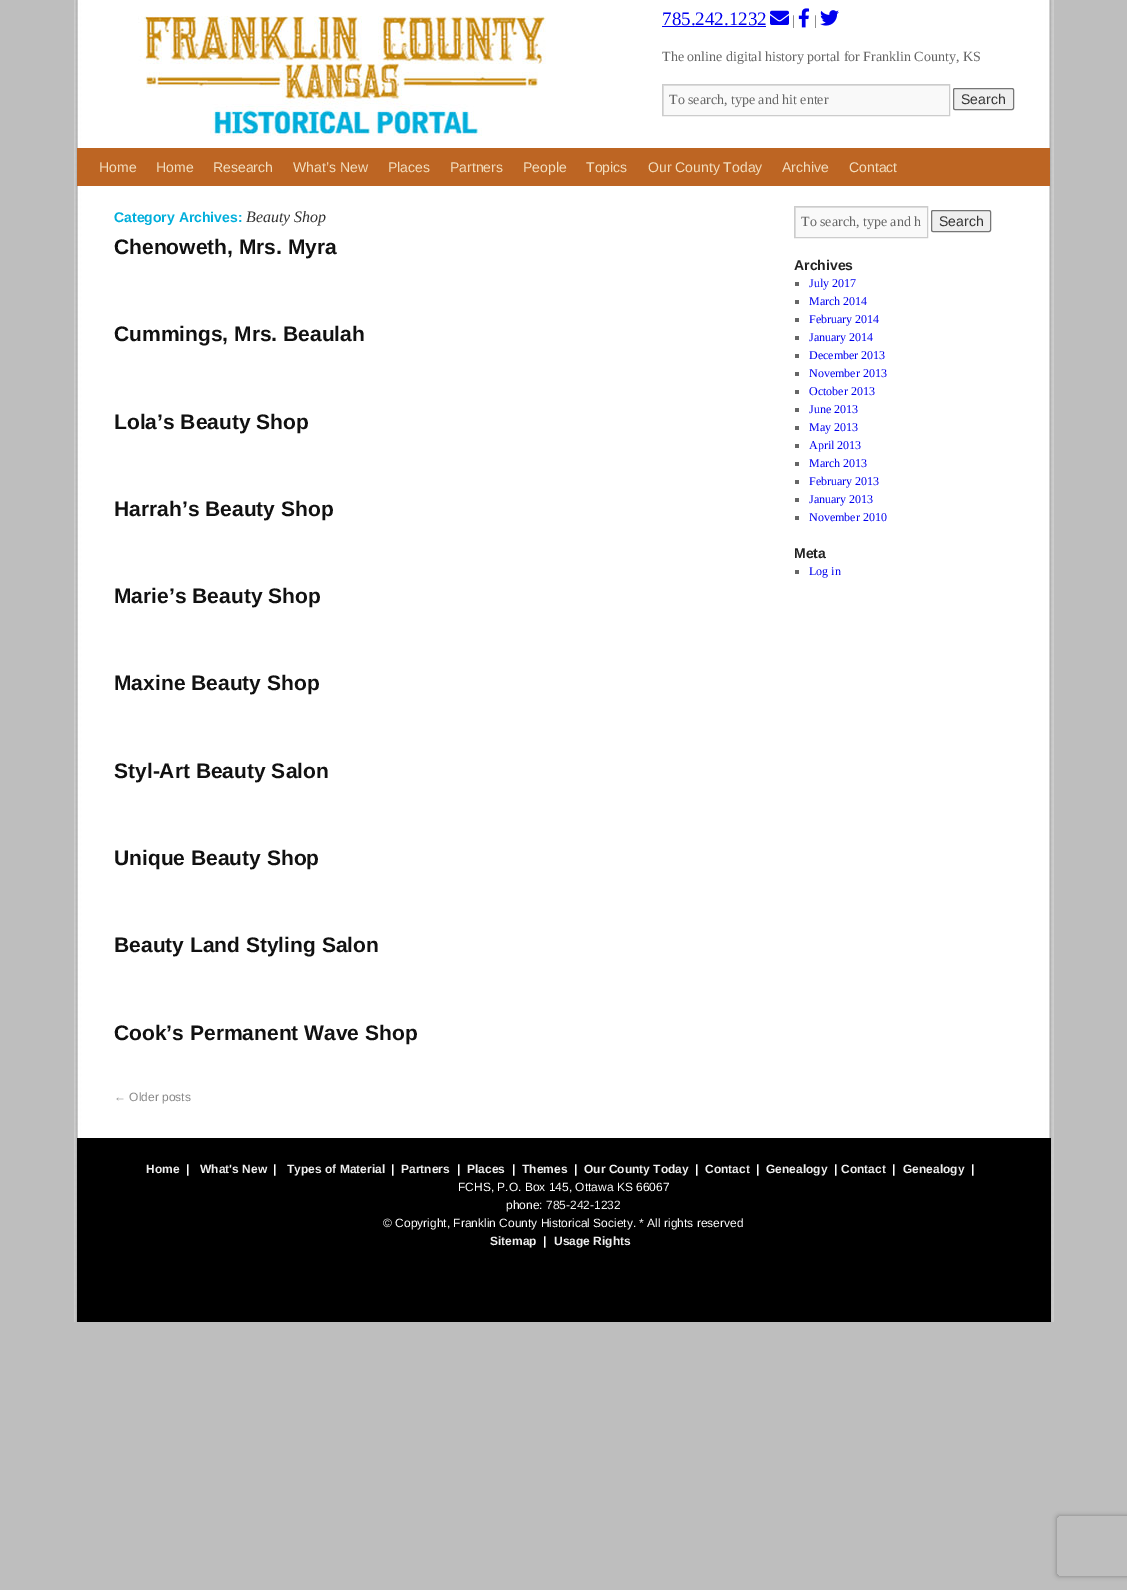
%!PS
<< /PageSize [1127 1590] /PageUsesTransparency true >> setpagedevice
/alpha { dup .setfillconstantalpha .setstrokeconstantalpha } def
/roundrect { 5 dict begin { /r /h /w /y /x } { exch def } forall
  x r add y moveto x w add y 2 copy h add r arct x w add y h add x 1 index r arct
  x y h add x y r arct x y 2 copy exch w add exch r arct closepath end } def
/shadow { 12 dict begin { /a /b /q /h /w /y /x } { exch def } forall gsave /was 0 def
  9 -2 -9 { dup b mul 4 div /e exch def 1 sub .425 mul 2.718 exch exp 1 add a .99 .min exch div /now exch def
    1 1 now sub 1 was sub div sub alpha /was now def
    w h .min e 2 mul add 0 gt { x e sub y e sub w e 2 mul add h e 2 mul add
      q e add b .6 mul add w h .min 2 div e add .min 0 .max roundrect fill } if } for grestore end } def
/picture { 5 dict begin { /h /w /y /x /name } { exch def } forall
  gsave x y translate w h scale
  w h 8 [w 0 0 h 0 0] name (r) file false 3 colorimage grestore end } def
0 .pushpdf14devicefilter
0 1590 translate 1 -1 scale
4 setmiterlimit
0.745 setgray
0 0 1127 1590 rectfill
(img1.rgb) 74 0 980 1322 picture
(img2.rgb) 138 16 408 120 picture
/LiberationSerif-Regular [19 0 0 -19 0 0] selectfont
0 0 0.933 setrgbcolor
662 25 moveto (785.242.1232) show
662 26 104 1 rectfill
(img3.rgb) 770 10 19 15 picture
/LiberationSerif-Regular [14 0 0 -14 0 0] selectfont
0.4 setgray
792 25 moveto (|) show
(img4.rgb) 798 8 12 20 picture
814 25 moveto (|) show
(img5.rgb) 820 10 19 16 picture
662 61 moveto (The online digital history portal for Franklin County, KS) show
0.976 setgray
664 86 285 29 rectfill
gsave
663 85 286 30 rectclip
0.878 setgray
newpath 564 -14 moveto 1048 -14 lineto 1048 214 lineto 564 214 lineto closepath 664 86 moveto 950 86 lineto 950 116 lineto 664 116 lineto closepath eofill
grestore
0.8 setgray
662.5 84.5 287 31 rectstroke
0.4 setgray
669 104 moveto (To search, type and hit enter) show
0.937 setgray
953.5 88.5 60 21 1.5 roundrect gsave fill grestore
0.463 setgray
stroke
/LiberationSans-Regular [14 0 0 -14 0 0] selectfont
0.2 setgray
961 104 moveto (Search) show
0.741 0.396 0.137 setrgbcolor
77 148 973 38 rectfill
0.949 0.871 0.745 setrgbcolor
99 172 moveto (Home) show
156 172 moveto (Home) show
213 172 moveto (Research) show
293 172 moveto (What’s New) show
388 172 moveto (Places) show
450 172 moveto (Partners) show
523 172 moveto (People) show
586 172 moveto (Topics) show
648 172 moveto (Our County Today) show
782 172 moveto (Archive) show
849 172 moveto (Contact) show
/LiberationSans-Bold [14 0 0 -14 0 0] selectfont
0 0.682 0.859 setrgbcolor
114 222 moveto (Category Archives:) show
/LiberationSerif-Italic [16 0 0 -16 0 0] selectfont
0.2 setgray
246 222 moveto (Beauty Shop) show
/LiberationSans-Bold [21 0 0 -21 0 0] selectfont
0.067 setgray
114 254 moveto (Chenoweth, Mrs. Myra) show
114 341 moveto (Cummings, Mrs. Beaulah) show
114 429 moveto (Lola’s Beauty Shop) show
114 516 moveto (Harrah’s Beauty Shop) show
114 603 moveto (Marie’s Beauty Shop) show
114 690 moveto (Maxine Beauty Shop) show
114 778 moveto (Styl-Art Beauty Salon) show
114 865 moveto (Unique Beauty Shop) show
114 952 moveto (Beauty Land Styling Salon) show
114 1040 moveto (Cook’s Permanent Wave Shop) show
/LiberationSans-Regular [12 0 0 -12 0 0] selectfont
0.533 setgray
114 1101 moveto (← Older posts) show
0.976 setgray
796 208 131 29 rectfill
gsave
795 207 132 30 rectclip
0.878 setgray
newpath 696 108 moveto 1026 108 lineto 1026 336 lineto 696 336 lineto closepath 796 208 moveto 928 208 lineto 928 238 lineto 796 238 lineto closepath eofill
grestore
0.8 setgray
794.5 206.5 133 31 rectstroke
/LiberationSerif-Regular [14 0 0 -14 0 0] selectfont
0.4 setgray
801 226 moveto (To search, type and h) show
0.937 setgray
931.5 210.5 59 21 1.5 roundrect gsave fill grestore
0.463 setgray
stroke
/LiberationSans-Regular [14 0 0 -14 0 0] selectfont
0.2 setgray
939 226 moveto (Search) show
/LiberationSans-Bold [14 0 0 -14 0 0] selectfont
0.133 setgray
794 270 moveto (Archives) show
0.4 setgray
795 282 4 4 rectfill
/LiberationSerif-Regular [12 0 0 -12 0 0] selectfont
0 0 0.933 setrgbcolor
809 287 moveto (July 2017) show
0.4 setgray
795 300 4 4 rectfill
0 0 0.933 setrgbcolor
809 305 moveto (March 2014) show
0.4 setgray
795 318 4 4 rectfill
0 0 0.933 setrgbcolor
809 323 moveto (February 2014) show
0.4 setgray
795 336 4 4 rectfill
0 0 0.933 setrgbcolor
809 341 moveto (January 2014) show
0.4 setgray
795 354 4 4 rectfill
0 0 0.933 setrgbcolor
809 359 moveto (December 2013) show
0.4 setgray
795 372 4 4 rectfill
0 0 0.933 setrgbcolor
809 377 moveto (November 2013) show
0.4 setgray
795 390 4 4 rectfill
0 0 0.933 setrgbcolor
809 395 moveto (October 2013) show
0.4 setgray
795 408 4 4 rectfill
0 0 0.933 setrgbcolor
809 413 moveto (June 2013) show
0.4 setgray
795 426 4 4 rectfill
0 0 0.933 setrgbcolor
809 431 moveto (May 2013) show
0.4 setgray
795 444 4 4 rectfill
0 0 0.933 setrgbcolor
809 449 moveto (April 2013) show
0.4 setgray
795 462 4 4 rectfill
0 0 0.933 setrgbcolor
809 467 moveto (March 2013) show
0.4 setgray
795 480 4 4 rectfill
0 0 0.933 setrgbcolor
809 485 moveto (February 2013) show
0.4 setgray
795 498 4 4 rectfill
0 0 0.933 setrgbcolor
809 503 moveto (January 2013) show
0.4 setgray
795 516 4 4 rectfill
0 0 0.933 setrgbcolor
809 521 moveto (November 2010) show
/LiberationSans-Bold [14 0 0 -14 0 0] selectfont
0.133 setgray
794 558 moveto (Meta) show
0.4 setgray
795 570 4 4 rectfill
/LiberationSerif-Regular [12 0 0 -12 0 0] selectfont
0 0 0.933 setrgbcolor
809 575 moveto (Log in) show
0 setgray
77 1138 974 184 rectfill
/LiberationSans-Bold [12 0 0 -12 0 0] selectfont
0.937 setgray
146 1173 moveto (Home) show
1 setgray
186 1173 moveto (|) show
0.937 setgray
200 1173 moveto (What's New) show
1 setgray
273 1173 moveto (|) show
0.937 setgray
287 1173 moveto (Types of Material) show
1 setgray
391 1173 moveto (|) show
0.937 setgray
401 1173 moveto (Partners) show
1 setgray
457 1173 moveto (|) show
0.937 setgray
467 1173 moveto (Places) show
1 setgray
512 1173 moveto (|) show
0.937 setgray
522 1173 moveto (Themes) show
1 setgray
574 1173 moveto (|) show
0.937 setgray
584 1173 moveto (Our County Today) show
1 setgray
695 1173 moveto (|) show
0.937 setgray
705 1173 moveto (Contact) show
1 setgray
756 1173 moveto (|) show
0.937 setgray
766 1173 moveto (Genealogy) show
1 setgray
834 1173 moveto (|) show
0.937 setgray
841 1173 moveto (Contact) show
1 setgray
892 1173 moveto (|) show
0.937 setgray
903 1173 moveto (Genealogy) show
1 setgray
971 1173 moveto (|) show
/LiberationSans-Regular [12 0 0 -12 0 0] selectfont
458 1191 moveto (FCHS, P.O. Box 145, Ottawa KS 66067) show
506 1209 moveto (phone:) show
0.937 setgray
546 1209 moveto (785-242-1232) show
1 setgray
383 1227 moveto (© Copyright, Franklin County Historical Society. * All rights reserved) show
/LiberationSans-Bold [12 0 0 -12 0 0] selectfont
0.937 setgray
490 1245 moveto (Sitemap) show
1 setgray
543 1245 moveto (|) show
0.937 setgray
554 1245 moveto (Usage Rights) show
gsave
newpath 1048 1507 moveto 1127 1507 lineto 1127 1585 lineto 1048 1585 lineto closepath 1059 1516 moveto 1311 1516 lineto 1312 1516 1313 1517 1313 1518 curveto 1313 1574 lineto 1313 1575 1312 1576 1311 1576 curveto 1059 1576 lineto 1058 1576 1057 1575 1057 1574 curveto 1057 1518 lineto 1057 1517 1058 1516 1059 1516 curveto closepath eoclip newpath
0.502 setgray
1057 1516 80 60 2 2.5 1 shadow
grestore
.poppdf14devicefilter showpage
